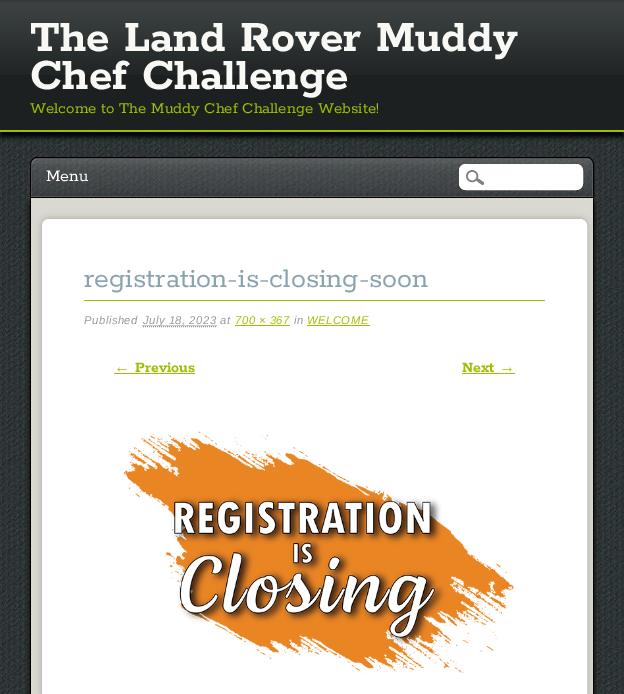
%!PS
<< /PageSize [624 694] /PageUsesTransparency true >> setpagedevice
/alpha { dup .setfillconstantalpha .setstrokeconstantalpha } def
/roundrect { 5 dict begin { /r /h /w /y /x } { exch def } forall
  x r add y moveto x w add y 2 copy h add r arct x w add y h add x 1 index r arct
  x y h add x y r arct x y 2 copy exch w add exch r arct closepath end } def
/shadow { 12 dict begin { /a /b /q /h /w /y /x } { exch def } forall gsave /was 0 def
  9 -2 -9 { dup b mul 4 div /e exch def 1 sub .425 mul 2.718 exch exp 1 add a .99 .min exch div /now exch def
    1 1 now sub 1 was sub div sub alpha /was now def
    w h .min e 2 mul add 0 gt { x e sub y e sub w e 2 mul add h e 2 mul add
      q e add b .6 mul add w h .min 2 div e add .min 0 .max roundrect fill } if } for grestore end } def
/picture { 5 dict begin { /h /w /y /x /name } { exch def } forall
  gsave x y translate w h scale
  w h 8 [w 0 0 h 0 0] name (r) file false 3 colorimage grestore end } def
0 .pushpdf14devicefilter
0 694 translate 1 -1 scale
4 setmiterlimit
1 setgray
0 0 624 694 rectfill
(img1.rgb) 0 132 624 562 picture
0 setgray
0 5 624 132 0 2.5 1 shadow
0.114 0.125 0.129 setrgbcolor
0 75 624 55 rectfill
(img2.rgb) 0 0 624 75 picture
0.624 0.749 0.024 setrgbcolor
0 130 624 2 rectfill
/Rokkitt-Bold [48 0 0 -48 0 0] selectfont
0.973 0.973 0.961 setrgbcolor
30 51 moveto (The Land Rover Muddy) show
30 89 moveto (Chef Challenge) show
/Rokkitt-Regular [16.8 0 0 -16.8 0 0] selectfont
0.624 0.749 0.024 setrgbcolor
30 113 moveto (Welcome to The Muddy Chef Challenge Website!) show
0 setgray
30 198 564 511 7 2.5 1 shadow
(img3.rgb) 30 158 564 38 picture
0.341 0.353 0.357 setrgbcolor
newpath 31 196 moveto 31 197 lineto 593 197 lineto 593 164 lineto 593 162 592 160 590 159 curveto 591 160 592 162 592 163 curveto 592 196 lineto closepath fill
0.439 0.447 0.451 setrgbcolor
newpath 38 159 moveto 588 159 lineto 589 159 591 160 592 161 curveto 591 159 589 158 587 158 curveto 37 158 lineto 34 158 31 161 31 164 curveto 31 197 lineto 32 197 lineto 32 165 lineto 32 162 35 159 38 159 curveto closepath fill
0 setgray
newpath 37 157.5 moveto 587 157.5 lineto 590.5 157.5 593.5 160.5 593.5 164 curveto 593.5 197.5 lineto 30.5 197.5 lineto 30.5 164 lineto 30.5 160.5 33.5 157.5 37 157.5 curveto closepath stroke
/Rokkitt-Regular [18 0 0 -18 0 0] selectfont
1 setgray
46 181 moveto (Menu) show
459 164 124 26 7 roundrect fill
(img4.rgb) 466 170 19 15 picture
459.5 164.5 123 25 6.5 roundrect stroke
(img5.rgb) 31 198 562 496 picture
0 setgray
newpath 30 198 moveto 594 198 lineto 594 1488 lineto 594 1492 591 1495 587 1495 curveto 37 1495 lineto 33 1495 30 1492 30 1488 curveto closepath 31 198 moveto 593 198 lineto 593 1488 lineto 593 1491 590 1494 587 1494 curveto 37 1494 lineto 34 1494 31 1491 31 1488 curveto closepath eofill
0.635 0.631 0.608 setrgbcolor
42 219 545 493 7 3.5 1 shadow
1 setgray
42.5 219.5 544 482 6.5 roundrect gsave fill grestore
stroke
0.624 0.749 0.024 setrgbcolor
84 300 461 1 rectfill
/Rokkitt-Regular [30 0 0 -30 0 0] selectfont
0.545 0.639 0.678 setrgbcolor
84 287 moveto (registration-is-closing-soon) show
/LiberationSans-Italic [11.25 0 0 -11.25 0 0] selectfont
0.6 setgray
84 324 moveto 0.5 0 (Published) ashow
[1 1] 0 setdash
newpath 143 326.5 moveto 217 326.5 lineto stroke
newpath 142.5 325.5 moveto 217 325.5 lineto stroke
143 324 moveto 0.5 0 (July 18, 2023 at) ashow
0.624 0.749 0.024 setrgbcolor
235 324 moveto 0.5 0 (700 × 367) ashow
235 325 55 1 rectfill
0.6 setgray
294 324 moveto 0.5 0 (in) ashow
0.624 0.749 0.024 setrgbcolor
307 324 moveto 0.5 0 (WELCOME) ashow
307 325 63 1 rectfill
/LiberationSerif-Bold [16 0 0 -16 0 0] selectfont
114 372 moveto (←) show
114 373 81 1 rectfill
/Rokkitt-Bold [16 0 0 -16 0 0] selectfont
135 372 moveto (Previous) show
462 372 moveto (Next) show
/LiberationSerif-Bold [16 0 0 -16 0 0] selectfont
499 372 moveto (→) show
462 373 53 1 rectfill
(img6.rgb) 123 431 391 242 picture
.poppdf14devicefilter showpage
